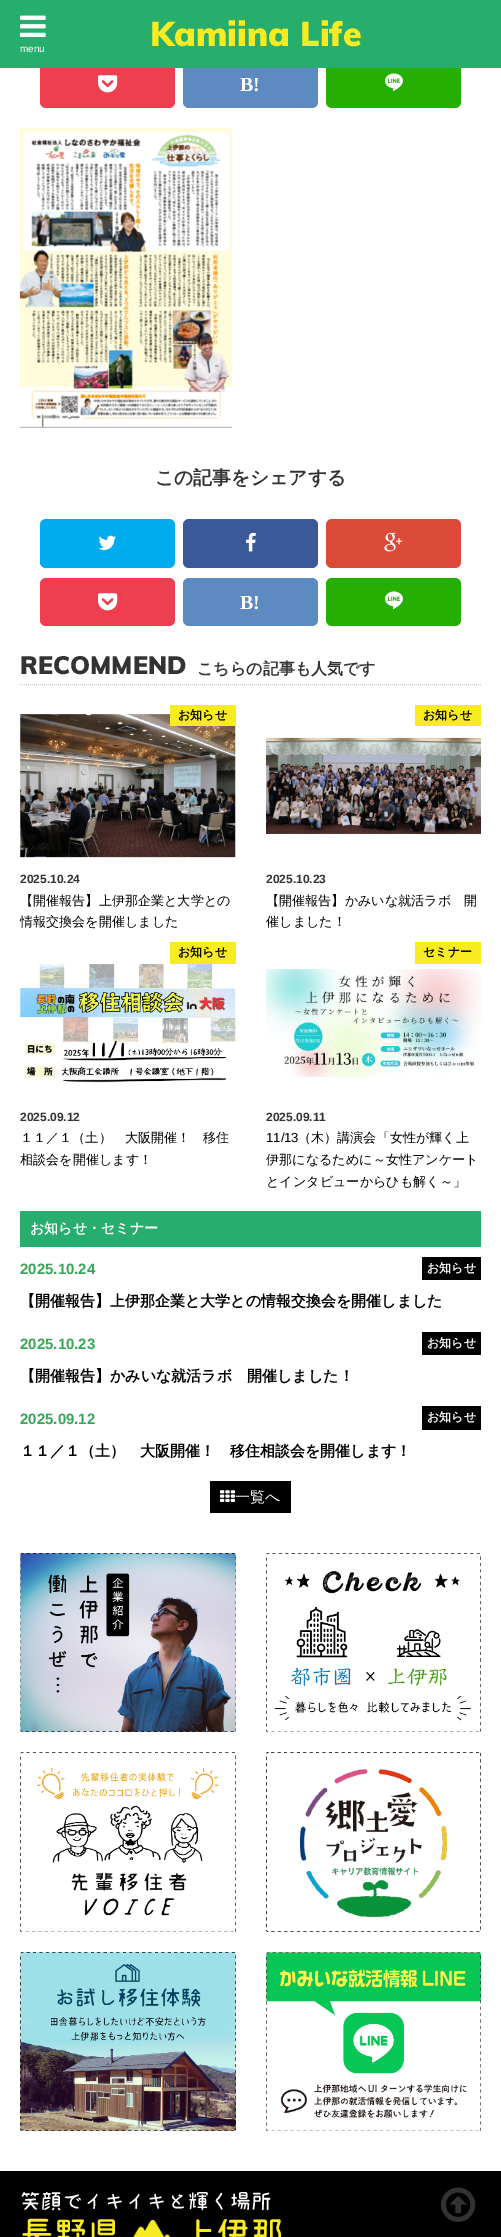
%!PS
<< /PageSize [501 2237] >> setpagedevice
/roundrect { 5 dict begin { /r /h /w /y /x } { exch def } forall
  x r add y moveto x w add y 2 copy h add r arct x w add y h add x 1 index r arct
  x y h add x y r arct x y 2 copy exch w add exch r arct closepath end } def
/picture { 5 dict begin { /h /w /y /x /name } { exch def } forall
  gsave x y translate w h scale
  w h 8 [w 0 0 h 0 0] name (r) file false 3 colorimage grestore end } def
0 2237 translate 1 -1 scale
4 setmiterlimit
1 setgray
0 0 501 2237 rectfill
0.941 0.243 0.318 setrgbcolor
40 60 135 48 6 roundrect fill
0.365 0.541 0.757 setrgbcolor
183 60 135 48 6 roundrect fill
0.145 0.686 0 setrgbcolor
326 60 135 48 6 roundrect fill
0.153 0.682 0.427 setrgbcolor
0 0 501 68 rectfill
/Muli-Black [34 0 0 -34 0 0] selectfont
0.976 0.922 0.129 setrgbcolor
150 46 moveto (Kamiina Life) show
(img1.rgb) 20 15 26 22 picture
/LiberationSans-Regular [10 0 0 -10 0 0] selectfont
1 setgray
20 52 moveto (menu) show
(img2.rgb) 98 75 20 18 picture
/LiberationSerif-Bold [20 0 0 -20 0 0] selectfont
240 91 moveto (B!) show
(img3.rgb) 385 73 18 18 picture
(img4.rgb) 20 128 212 300 picture
/WenQuanYiZenHei-Bold [18.75 0 0 -18.75 0 0] selectfont
0.2 setgray
155 484 moveto (この記事をシェアする) show
0 0.675 0.933 setrgbcolor
40 519 135 49 6 roundrect fill
(img5.rgb) 98 535 18 15 picture
0.231 0.349 0.596 setrgbcolor
183 519 135 49 6 roundrect fill
(img6.rgb) 246 532 10 20 picture
0.859 0.29 0.224 setrgbcolor
326 519 135 49 6 roundrect fill
(img7.rgb) 384 532 18 20 picture
0.941 0.243 0.318 setrgbcolor
40 578 135 48 6 roundrect fill
(img2.rgb) 98 593 20 18 picture
0.365 0.541 0.757 setrgbcolor
183 578 135 48 6 roundrect fill
/LiberationSerif-Bold [20 0 0 -20 0 0] selectfont
1 setgray
240 609 moveto (B!) show
0.145 0.686 0 setrgbcolor
326 578 135 48 6 roundrect fill
(img3.rgb) 385 591 18 18 picture
0.8 setgray
[1 1] 0 setdash
newpath 20 684.5 moveto 481 684.5 lineto stroke
/Muli-Black [25 0 0 -25 0 0] selectfont
0.2 setgray
20 674 moveto (RECOMMEND) show
/WenQuanYiZenHei-Bold [16 0 0 -16 0 0] selectfont
197 674 moveto (こちらの記事も人気です) show
(img8.rgb) 20 714 216 144 picture
0.976 0.922 0.129 setrgbcolor
170 705 66 21 rectfill
/WenQuanYiZenHei-Bold [12 0 0 -12 0 0] selectfont
0 setgray
178 719 moveto (お知らせ) show
/LiberationSans-Bold [12 0 0 -12 0 0] selectfont
0.2 setgray
20 883 moveto (2025.10.24) show
/WenQuanYiZenHei-Medium [13.1 0 0 -13.1 0 0] selectfont
0 setgray
20 905 moveto (【開催報告】上伊那企業と大学との) show
20 926 moveto (情報交換会を開催しました) show
0.976 0.922 0.129 setrgbcolor
415 705 66 21 rectfill
/WenQuanYiZenHei-Bold [12 0 0 -12 0 0] selectfont
0 setgray
423 719 moveto (お知らせ) show
(img9.rgb) 266 737 215 97 picture
/LiberationSans-Bold [12 0 0 -12 0 0] selectfont
0.2 setgray
266 883 moveto (2025.10.23) show
/WenQuanYiZenHei-Medium [13.1 0 0 -13.1 0 0] selectfont
0 setgray
266 905 moveto (【開催報告】かみいな就活ラボ　開) show
266 926 moveto (催しました！) show
0.976 0.922 0.129 setrgbcolor
170 942 66 22 rectfill
/WenQuanYiZenHei-Bold [12 0 0 -12 0 0] selectfont
0 setgray
178 956 moveto (お知らせ) show
(img10.rgb) 20 964 216 119 picture
/LiberationSans-Bold [12 0 0 -12 0 0] selectfont
0.2 setgray
20 1121 moveto (2025.09.12) show
/WenQuanYiZenHei-Medium [13.1 0 0 -13.1 0 0] selectfont
0 setgray
20 1142 moveto (１１／１（土）　大阪開催！　移住) show
20 1164 moveto (相談会を開催します！) show
0.976 0.922 0.129 setrgbcolor
415 942 66 22 rectfill
/WenQuanYiZenHei-Bold [12 0 0 -12 0 0] selectfont
0 setgray
423 956 moveto (セミナー) show
(img11.rgb) 266 969 215 108 picture
/LiberationSans-Bold [12 0 0 -12 0 0] selectfont
0.2 setgray
266 1121 moveto (2025.09.11) show
/LiberationSans-Regular [13.1 0 0 -13.1 0 0] selectfont
0 setgray
266 1142 moveto (11/13) show
/WenQuanYiZenHei-Medium [13.1 0 0 -13.1 0 0] selectfont
298 1142 moveto (（木）講演会「女性が輝く上) show
266 1164 moveto (伊那になるために～女性アンケート) show
266 1186 moveto (とインタビューからひも解く～」) show
0.153 0.678 0.427 setrgbcolor
20 1211 461 36 rectfill
/WenQuanYiZenHei-Bold [14 0 0 -14 0 0] selectfont
1 setgray
30 1233 moveto (お知らせ・セミナー) show
/LiberationSans-Bold [15 0 0 -15 0 0] selectfont
0.227 0.647 0.349 setrgbcolor
20 1274 moveto (2025.10.24) show
0 setgray
422 1257 59 23 rectfill
/WenQuanYiZenHei-Bold [12 0 0 -12 0 0] selectfont
1 setgray
427 1272 moveto (お知らせ) show
/WenQuanYiZenHei-Bold [15 0 0 -15 0 0] selectfont
0 setgray
20 1306 moveto (【開催報告】上伊那企業と大学との情報交換会を開催しました) show
/LiberationSans-Bold [15 0 0 -15 0 0] selectfont
0.227 0.647 0.349 setrgbcolor
20 1349 moveto (2025.10.23) show
0 setgray
422 1332 59 23 rectfill
/WenQuanYiZenHei-Bold [12 0 0 -12 0 0] selectfont
1 setgray
427 1347 moveto (お知らせ) show
/WenQuanYiZenHei-Bold [15 0 0 -15 0 0] selectfont
0 setgray
20 1381 moveto (【開催報告】かみいな就活ラボ　開催しました！) show
/LiberationSans-Bold [15 0 0 -15 0 0] selectfont
0.227 0.647 0.349 setrgbcolor
20 1424 moveto (2025.09.12) show
0 setgray
422 1406 59 24 rectfill
/WenQuanYiZenHei-Bold [12 0 0 -12 0 0] selectfont
1 setgray
427 1421 moveto (お知らせ) show
/WenQuanYiZenHei-Bold [15 0 0 -15 0 0] selectfont
0 setgray
20 1456 moveto (１１／１（土）　大阪開催！　移住相談会を開催します！) show
210 1481 81 32 rectfill
(img12.rgb) 220 1490 15 12 picture
/WenQuanYiZenHei-Medium [15 0 0 -15 0 0] selectfont
1 setgray
235 1502 moveto (一覧へ) show
(img13.rgb) 20 1553 216 179 picture
(img14.rgb) 266 1553 215 179 picture
(img15.rgb) 20 1752 216 180 picture
(img16.rgb) 266 1752 215 180 picture
(img17.rgb) 20 1952 216 179 picture
(img18.rgb) 266 1952 215 179 picture
0 setgray
0 2171 501 66 rectfill
/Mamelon-Regular [21 0 0 -21 0 0] selectfont
1 setgray
20 2209 moveto (笑顔でイキイキと輝く場所) show
/Mamelon-Regular [34 0 0 -34 0 0] selectfont
0.976 0.922 0.129 setrgbcolor
20 2246 moveto (長野県) show
(img19.rgb) 133 2220 38 17 picture
182 2246 moveto (上伊那) show
(img20.rgb) 441 2187 35 35 picture
showpage
